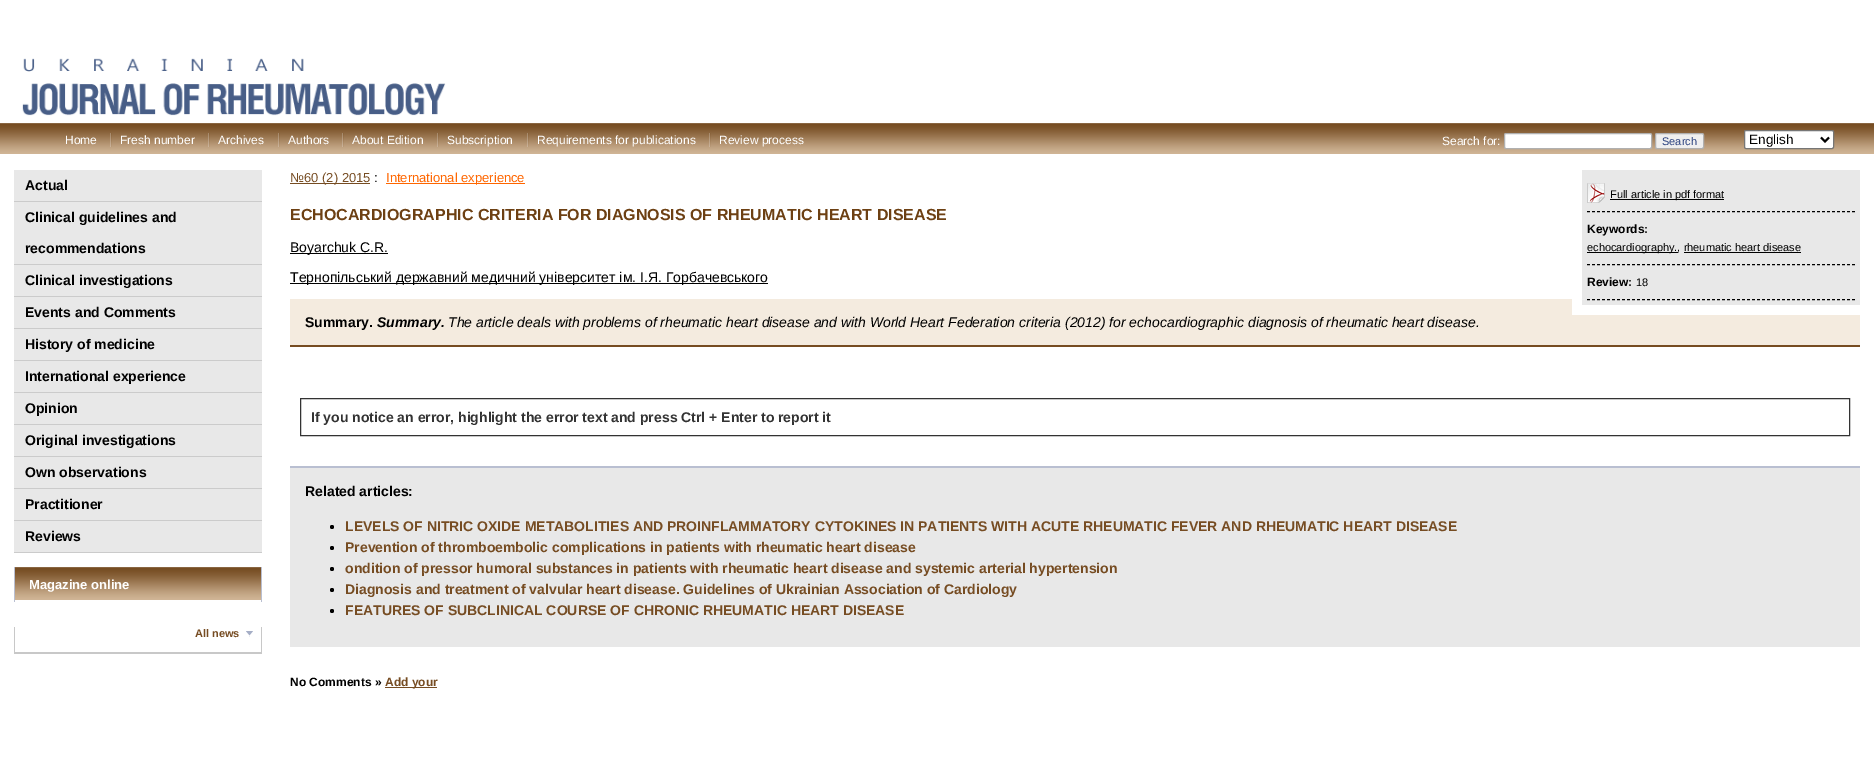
%!PS
<< /PageSize [1874 777] >> setpagedevice
/roundrect { 5 dict begin { /r /h /w /y /x } { exch def } forall
  x r add y moveto x w add y 2 copy h add r arct x w add y h add x 1 index r arct
  x y h add x y r arct x y 2 copy exch w add exch r arct closepath end } def
/picture { 5 dict begin { /h /w /y /x /name } { exch def } forall
  gsave x y translate w h scale
  w h 8 [w 0 0 h 0 0] name (r) file false 3 colorimage grestore end } def
0 777 translate 1 -1 scale
4 setmiterlimit
1 setgray
0 0 1874 777 rectfill
(img1.rgb) 22 58 424 58 picture
(img2.rgb) 0 123 1874 31 picture
/LiberationSans-Regular [12 0 0 -12 0 0] selectfont
65 144 moveto (Home) show
(img3.rgb) 110 133 2 14 picture
120 144 moveto (Fresh number) show
(img3.rgb) 208 133 2 14 picture
218 144 moveto (Archives) show
(img3.rgb) 278 133 2 14 picture
288 144 moveto (Authors) show
(img3.rgb) 342 133 2 14 picture
352 144 moveto (About Edition) show
(img3.rgb) 437 133 2 14 picture
447 144 moveto (Subscription) show
(img3.rgb) 527 133 2 14 picture
537 144 moveto (Requirements for publications) show
(img3.rgb) 709 133 2 14 picture
719 144 moveto (Review process) show
1442 145 moveto (Search for:) show
1504.5 133.5 147 15 1.5 roundrect gsave fill grestore
0.69 setgray
stroke
0.937 setgray
1655.5 133.5 48 15 1.5 roundrect gsave fill grestore
0.69 setgray
stroke
/LiberationSans-Regular [11 0 0 -11 0 0] selectfont
0.173 0.263 0.502 setrgbcolor
1662 145 moveto (Search) show
1 setgray
1744.5 130.5 89 18 1.5 roundrect gsave fill grestore
0.463 setgray
stroke
0 setgray
2 setlinewidth
newpath 1821 137.5 moveto 1825 141.5 lineto 1829 137.5 lineto stroke
/LiberationSans-Regular [13.5 0 0 -13.5 0 0] selectfont
1749 144 moveto (English) show
0.91 setgray
14 170 248 31 rectfill
0.796 setgray
14 201 248 1 rectfill
/LiberationSans-Bold [14 0 0 -14 0 0] selectfont
0 setgray
25 190 moveto (Actual) show
0.91 setgray
14 202 248 62 rectfill
0.796 setgray
14 264 248 1 rectfill
0 setgray
25 222 moveto (Clinical guidelines and) show
25 253 moveto (recommendations) show
0.91 setgray
14 265 248 31 rectfill
0.796 setgray
14 296 248 1 rectfill
0 setgray
25 285 moveto (Clinical investigations) show
0.91 setgray
14 297 248 31 rectfill
0.796 setgray
14 328 248 1 rectfill
0 setgray
25 317 moveto (Events and Comments) show
0.91 setgray
14 329 248 31 rectfill
0.796 setgray
14 360 248 1 rectfill
0 setgray
25 349 moveto (History of medicine) show
0.91 setgray
14 361 248 31 rectfill
0.796 setgray
14 392 248 1 rectfill
0 setgray
25 381 moveto (International experience) show
0.91 setgray
14 393 248 31 rectfill
0.796 setgray
14 424 248 1 rectfill
0 setgray
25 413 moveto (Opinion) show
0.91 setgray
14 425 248 31 rectfill
0.796 setgray
14 456 248 1 rectfill
0 setgray
25 445 moveto (Original investigations) show
0.91 setgray
14 457 248 31 rectfill
0.796 setgray
14 488 248 1 rectfill
0 setgray
25 477 moveto (Own observations) show
0.91 setgray
14 489 248 31 rectfill
0.796 setgray
14 520 248 1 rectfill
0 setgray
25 509 moveto (Practitioner) show
0.91 setgray
14 521 248 31 rectfill
0.796 setgray
14 552 248 1 rectfill
0 setgray
25 541 moveto (Reviews) show
(img4.rgb) 15 567 246 33 picture
0.725 0.749 0.82 setrgbcolor
261 567 1 35 rectfill
14 567 1 35 rectfill
/LiberationSans-Bold [13 0 0 -13 0 0] selectfont
1 setgray
29 589 moveto (Magazine online) show
0.784 setgray
261 627 1 27 rectfill
14 652 248 2 rectfill
14 627 1 27 rectfill
/LiberationSans-Bold [11 0 0 -11 0 0] selectfont
0.463 0.298 0.133 setrgbcolor
195 637 moveto (All news) show
(img5.rgb) 246 631 7 6 picture
290 183 80 1 rectfill
/LiberationSans-Regular [13 0 0 -13 0 0] selectfont
290 182 moveto (№60 \(2\) 2015) show
0 setgray
374 182 moveto (:) show
1 0.4 0 setrgbcolor
386 183 139 1 rectfill
386 182 moveto (International experience) show
/LiberationSans-Bold [16 0 0 -16 0 0] selectfont
0.427 0.251 0.075 setrgbcolor
290 220 moveto (ECHOCARDIOGRAPHIC CRITERIA FOR DIAGNOSIS OF RHEUMATIC HEART DISEASE) show
0 setgray
290 253 98 1 rectfill
/LiberationSans-Regular [14 0 0 -14 0 0] selectfont
290 252 moveto (Boyarchuk C.R.) show
290 283 478 1 rectfill
290 282 moveto (Тернопільський державний медичний університет ім. І.Я. Горбачевського) show
0.957 0.922 0.875 setrgbcolor
290 299 1570 46 rectfill
0.463 0.298 0.133 setrgbcolor
290 345 1570 2 rectfill
/LiberationSans-Bold [14 0 0 -14 0 0] selectfont
0 setgray
305 327 moveto (Summary.) show
/LiberationSans-BoldItalic [14 0 0 -14 0 0] selectfont
377 327 moveto (Summary.) show
/LiberationSans-Italic [14 0 0 -14 0 0] selectfont
448 327 moveto (The article deals with problems of rheumatic heart disease and with World Heart Federation criteria \(2012\) for echocardiographic diagnosis of rheumatic heart disease.) show
0.2 setgray
1 setlinewidth
300.5 398.5 1549 37 rectstroke
/LiberationSans-Bold [14 0 0 -14 0 0] selectfont
311 422 moveto (If you notice an error, highlight the error text and press Ctrl + Enter to report it) show
0.91 setgray
290 468 1570 179 rectfill
0.725 0.749 0.82 setrgbcolor
290 466 1570 2 rectfill
0 setgray
305 496 moveto (Related articles:) show
newpath 332 527 2 0 360 arc closepath fill
0.463 0.298 0.133 setrgbcolor
345 531 moveto (LEVELS OF NITRIC OXIDE METABOLITIES AND PROINFLAMMATORY CYTOKINES IN PATIENTS WITH ACUTE RHEUMATIC FEVER AND RHEUMATIC HEART DISEASE) show
0 setgray
newpath 332 548 2 0 360 arc closepath fill
0.463 0.298 0.133 setrgbcolor
345 552 moveto (Prevention of thromboembolic complications in patients with rheumatic heart disease) show
0 setgray
newpath 332 569 2 0 360 arc closepath fill
0.463 0.298 0.133 setrgbcolor
345 573 moveto (ondition of pressor humoral substances in patients with rheumatic heart disease and systemic arterial hypertension) show
0 setgray
newpath 332 590 2 0 360 arc closepath fill
0.463 0.298 0.133 setrgbcolor
345 594 moveto (Diagnosis and treatment of valvular heart disease. Guidelines of Ukrainian Association of Cardiology) show
0 setgray
newpath 332 611 2 0 360 arc closepath fill
0.463 0.298 0.133 setrgbcolor
345 615 moveto (FEATURES OF SUBCLINICAL COURSE OF CHRONIC RHEUMATIC HEART DISEASE) show
/LiberationSans-Bold [12 0 0 -12 0 0] selectfont
0 setgray
290 686 moveto (No Comments ») show
0.463 0.298 0.133 setrgbcolor
385 687 52 1 rectfill
385 686 moveto (Add your) show
1 setgray
1572 299 288 16 rectfill
0.91 setgray
1582 170 278 135 rectfill
0 setgray
[3 2] 0 setdash
newpath 1587 211.5 moveto 1855 211.5 lineto stroke
(img6.rgb) 1587 183 18 20 picture
1610 199 114 1 rectfill
/LiberationSans-Regular [11 0 0 -11 0 0] selectfont
1610 198 moveto (Full article in pdf format) show
newpath 1587 264.5 moveto 1855 264.5 lineto stroke
/LiberationSans-Bold [12 0 0 -12 0 0] selectfont
1587 233 moveto (Keywords:) show
1587 252 91 1 rectfill
/LiberationSans-Regular [11 0 0 -11 0 0] selectfont
1587 251 moveto (echocardiography., rheumatic heart disease) show
1684 252 117 1 rectfill
newpath 1587 299.5 moveto 1855 299.5 lineto stroke
/LiberationSans-Bold [12 0 0 -12 0 0] selectfont
1587 286 moveto (Review:) show
/LiberationSans-Regular [11 0 0 -11 0 0] selectfont
1636 286 moveto (18) show
showpage
